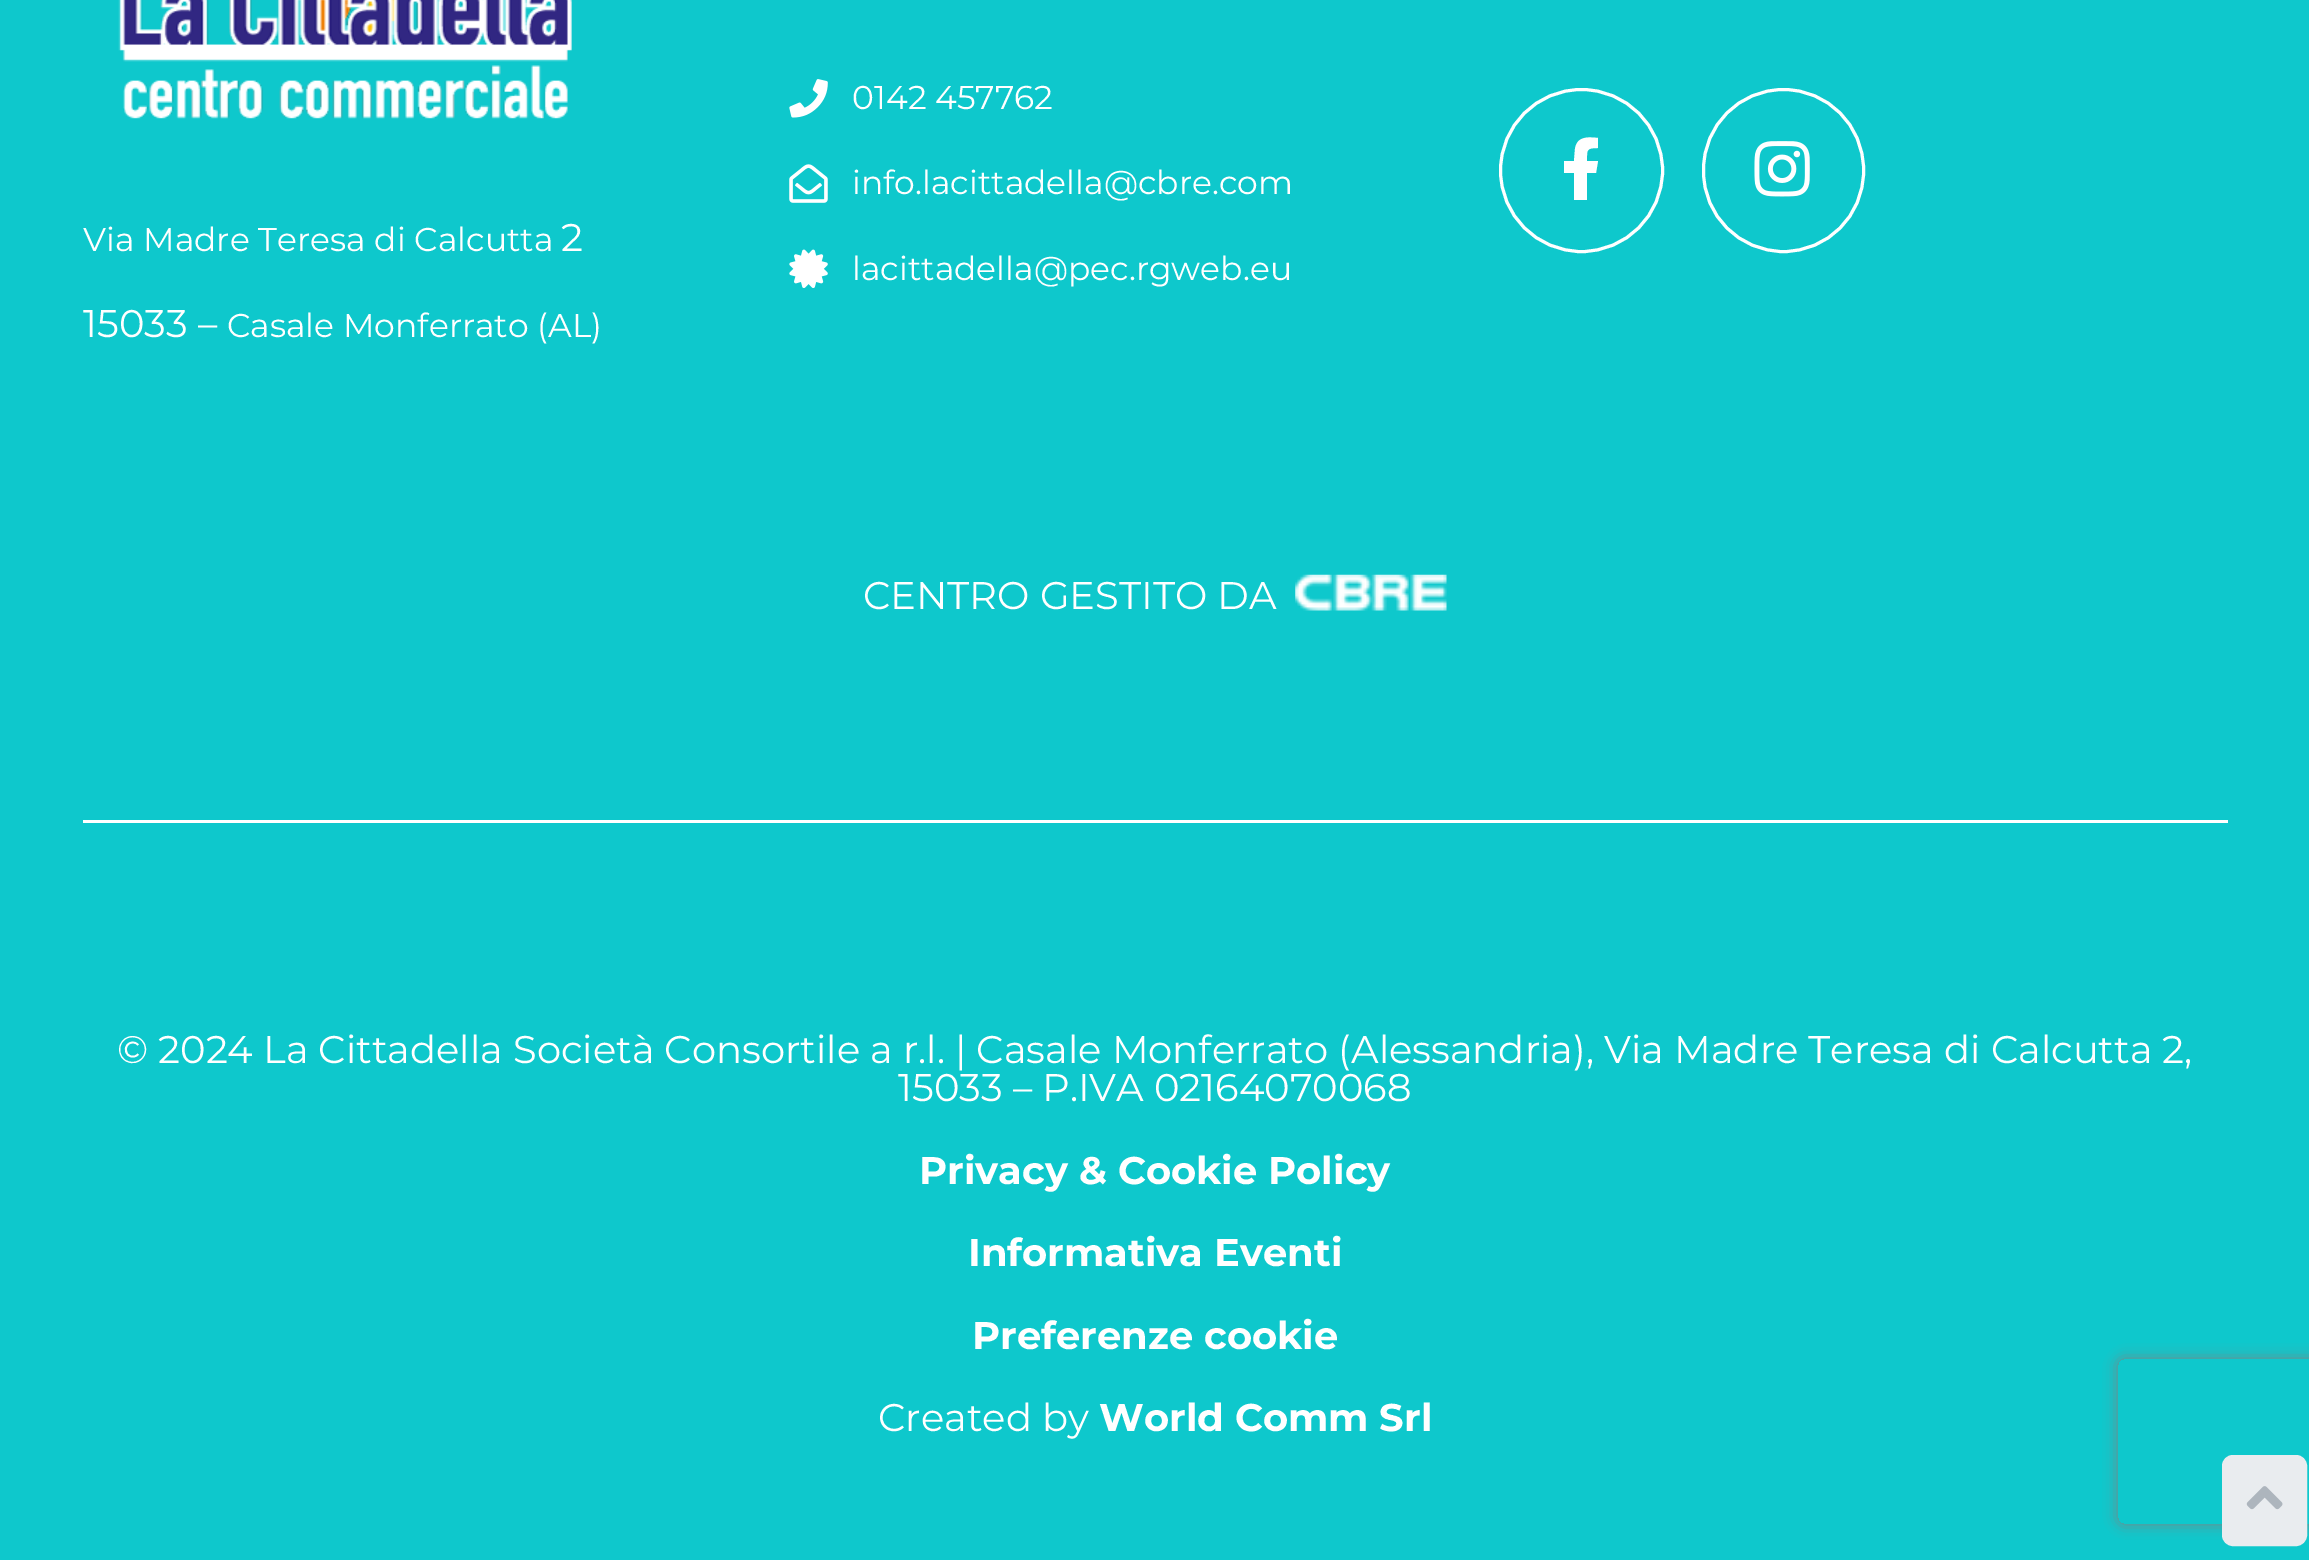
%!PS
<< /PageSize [2309 1560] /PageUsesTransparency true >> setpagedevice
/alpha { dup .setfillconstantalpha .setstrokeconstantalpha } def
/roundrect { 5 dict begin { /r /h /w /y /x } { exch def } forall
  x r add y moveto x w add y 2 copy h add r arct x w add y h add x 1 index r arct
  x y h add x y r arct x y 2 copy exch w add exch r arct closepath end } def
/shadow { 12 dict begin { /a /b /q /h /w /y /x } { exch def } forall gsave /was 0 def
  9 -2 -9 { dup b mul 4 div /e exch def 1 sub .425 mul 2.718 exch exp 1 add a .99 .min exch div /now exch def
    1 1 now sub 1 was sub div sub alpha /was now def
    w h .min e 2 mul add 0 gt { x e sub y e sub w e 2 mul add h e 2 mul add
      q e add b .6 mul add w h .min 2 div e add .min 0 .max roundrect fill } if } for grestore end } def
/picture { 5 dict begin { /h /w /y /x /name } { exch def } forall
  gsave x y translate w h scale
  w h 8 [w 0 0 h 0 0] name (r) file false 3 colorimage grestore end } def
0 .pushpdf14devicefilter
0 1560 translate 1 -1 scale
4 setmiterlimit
0.055 0.784 0.8 setrgbcolor
0 0 2309 1560 rectfill
(img1.rgb) 789 79 39 39 picture
/Montserrat-Regular [33 0 0 -33 0 0] selectfont
1 setgray
852 109 moveto (0142 457762) show
(img2.rgb) 789 164 39 39 picture
852 194 moveto (info.lacittadella@cbre.com) show
(img3.rgb) 789 249 39 39 picture
852 280 moveto (lacittadella@pec.rgweb.eu) show
3 setlinewidth
newpath 1581.5 170.5 81 0 360 arc closepath stroke
newpath 1596 173 moveto 1587 173 lineto 1587 200 lineto 1574 200 lineto 1574 173 lineto 1564 173 lineto 1564 161 lineto 1574 161 lineto 1575 149 lineto 1577 136 1588 137 1598 138 curveto 1598 148 lineto 1586 148 1587 150 1587 161 curveto 1598 161 lineto closepath fill
1703.5 89.5 160 162 80 roundrect stroke
(img4.rgb) 1754 141 56 56 picture
(img5.rgb) 118 0 454 119 picture
83 251 moveto (Via Madre Teresa di Calcutta) show
/Montserrat-Regular [38.5 0 0 -38.5 0 0] selectfont
561 251 moveto (2) show
83 337 moveto (15033 –) show
/Montserrat-Regular [33 0 0 -33 0 0] selectfont
227 337 moveto (Casale Monferrato \(AL\)) show
/Montserrat-Regular [38.5 0 0 -38.5 0 0] selectfont
863 609 moveto (CENTRO GESTITO DA) show
(img6.rgb) 1295 574 152 37 picture
83 820 2145 3 rectfill
117 1063 moveto (© 2024 La Cittadella Società Consortile a r.l. | Casale Monferrato \(Alessandria\), Via Madre Teresa di Calcutta 2,) show
898 1101 moveto (15033 – P.IVA 02164070068) show
/Montserrat-Bold [38.5 0 0 -38.5 0 0] selectfont
919 1184 moveto (Privacy & Cookie Policy) show
968 1266 moveto (Informativa Eventi) show
972 1349 moveto (Preferenze cookie) show
/Montserrat-Regular [38.5 0 0 -38.5 0 0] selectfont
878 1431 moveto (Created by) show
/Montserrat-Bold [38.5 0 0 -38.5 0 0] selectfont
1099 1431 moveto (World Comm Srl) show
gsave
newpath 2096 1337 moveto 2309 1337 lineto 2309 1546 lineto 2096 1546 lineto closepath 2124 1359 moveto 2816 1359 lineto 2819.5 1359 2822 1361.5 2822 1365 curveto 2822 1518 lineto 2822 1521.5 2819.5 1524 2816 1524 curveto 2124 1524 lineto 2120.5 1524 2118 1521.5 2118 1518 curveto 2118 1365 lineto 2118 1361.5 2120.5 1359 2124 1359 curveto closepath eoclip newpath
0.502 setgray
2118 1359 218 165 6 7 1 shadow
grestore
0.914 0.925 0.937 setrgbcolor
2223.5 1456.5 82 88 9.5 roundrect gsave fill grestore
stroke
(img7.rgb) 2246 1486 37 24 picture
.poppdf14devicefilter showpage
